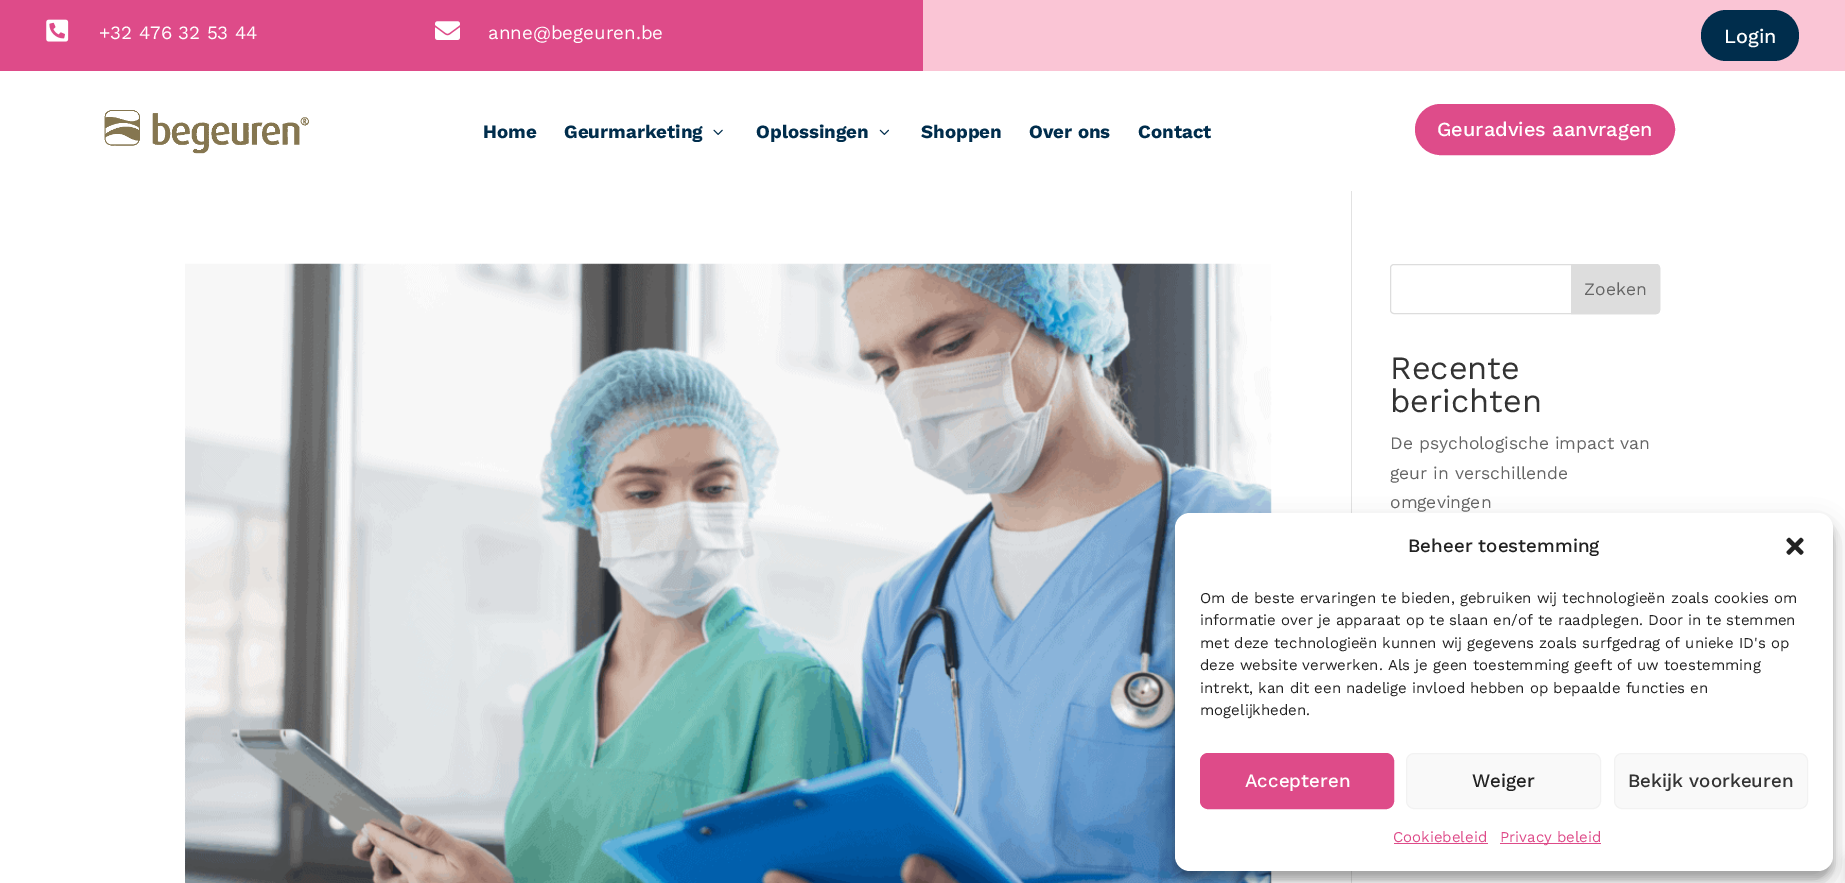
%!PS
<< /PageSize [1845 883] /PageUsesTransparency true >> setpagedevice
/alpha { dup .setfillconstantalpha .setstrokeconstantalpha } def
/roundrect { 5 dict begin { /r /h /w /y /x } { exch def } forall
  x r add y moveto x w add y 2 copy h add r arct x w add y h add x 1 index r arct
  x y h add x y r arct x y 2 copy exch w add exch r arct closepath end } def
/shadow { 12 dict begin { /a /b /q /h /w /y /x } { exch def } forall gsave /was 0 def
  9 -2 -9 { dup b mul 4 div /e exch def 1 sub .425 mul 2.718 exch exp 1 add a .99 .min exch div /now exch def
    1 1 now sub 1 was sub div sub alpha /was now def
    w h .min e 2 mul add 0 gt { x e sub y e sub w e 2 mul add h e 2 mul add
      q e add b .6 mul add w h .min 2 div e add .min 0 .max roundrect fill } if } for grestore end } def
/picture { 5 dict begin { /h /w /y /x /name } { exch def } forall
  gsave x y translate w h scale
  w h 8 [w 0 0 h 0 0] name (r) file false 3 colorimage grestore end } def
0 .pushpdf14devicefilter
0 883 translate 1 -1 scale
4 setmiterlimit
1 setgray
0 0 1845 883 rectfill
0.871 0.294 0.537 setrgbcolor
0 0 923 71 rectfill
0.98 0.773 0.835 setrgbcolor
923 0 922 71 rectfill
(img1.rgb) 46 19 23 23 picture
/WorkSans-Regular [18.75 0 0 -18.75 0 0] selectfont
1 setgray
99 39 moveto (+32 476 32 53 44) show
(img2.rgb) 435 21 25 19 picture
488 39 moveto (anne@begeuren.be) show
0 0.176 0.298 setrgbcolor
1701 10 98 51 25.5 roundrect fill
/WorkSans-Medium [20 0 0 -20 0 0] selectfont
1 setgray
1724 43 moveto (Login) show
(img3.rgb) 104 110 205 44 picture
/WorkSans-Bold [18.75 0 0 -18.75 0 0] selectfont
0 0.176 0.298 setrgbcolor
483 138 moveto (Home) show
564 138 moveto (Geurmarketing) show
(img4.rgb) 713 129 10 6 picture
756 138 moveto (Oplossingen) show
(img5.rgb) 879 129 10 6 picture
921 138 moveto (Shoppen) show
1029 138 moveto (Over ons) show
1138 138 moveto (Contact) show
0.871 0.298 0.541 setrgbcolor
1416.5 105.5 257 48 24 roundrect gsave fill grestore
0.871 0.294 0.537 setrgbcolor
3 setlinewidth
stroke
/WorkSans-Medium [20 0 0 -20 0 0] selectfont
1 setgray
1437 136 moveto (Geuradvies aanvragen) show
0.886 setgray
1351 191 1 692 rectfill
(img6.rgb) 185 263 1087 620 picture
0.867 setgray
1 setlinewidth
1390.5 264.5 269 49 3.5 roundrect stroke
newpath 1571.5 264.5 moveto 1656 264.5 lineto 1658 264.5 1659.5 266 1659.5 268 curveto 1659.5 310 lineto 1659.5 312 1658 313.5 1656 313.5 curveto 1571.5 313.5 lineto closepath gsave fill grestore
stroke
/WorkSans-Regular [17.5 0 0 -17.5 0 0] selectfont
0.4 setgray
1584 295 moveto (Zoeken) show
/WorkSans-Regular [32.5 0 0 -32.5 0 0] selectfont
0.2 setgray
1390 379 moveto (Recente) show
1390 412 moveto (berichten) show
/WorkSans-Regular [17.5 0 0 -17.5 0 0] selectfont
0.4 setgray
1390 449 moveto (De psychologische impact van) show
1390 479 moveto (geur in verschillende) show
1390 508 moveto (omgevingen) show
0 setgray
1175 520 658 359 15 4 0.23 shadow
1175 525 658 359 15 12.5 0.19 shadow
1 setgray
1175 513 658 358 15 roundrect fill
/WorkSans-Medium [18.75 0 0 -18.75 0 0] selectfont
0.133 setgray
1408 552 moveto (Beheer toestemming) show
(img7.rgb) 1786 537 18 18 picture
/WorkSans-Regular [15 0 0 -15 0 0] selectfont
1200 603 moveto (Om de beste ervaringen te bieden, gebruiken wij technologieën zoals cookies om) show
1200 625 moveto (informatie over je apparaat op te slaan en/of te raadplegen. Door in te stemmen) show
1200 648 moveto (met deze technologieën kunnen wij gegevens zoals surfgedrag of unieke ID's op) show
1200 670 moveto (deze website verwerken. Als je geen toestemming geeft of uw toestemming) show
1200 693 moveto (intrekt, kan dit een nadelige invloed hebben op bepaalde functies en) show
1200 715 moveto (mogelijkheden.) show
0.871 0.294 0.537 setrgbcolor
1200.5 753.5 193 55 7.5 roundrect gsave fill grestore
stroke
/WorkSans-Medium [18.75 0 0 -18.75 0 0] selectfont
1 setgray
1245 787 moveto (Accepteren) show
0.976 setgray
1406.5 753.5 194 55 7.5 roundrect gsave fill grestore
0.949 setgray
stroke
0.133 setgray
1472 787 moveto (Weiger) show
0.976 setgray
1614.5 753.5 193 55 7.5 roundrect gsave fill grestore
0.949 setgray
stroke
0.2 setgray
1628 787 moveto (Bekijk voorkeuren) show
/WorkSans-Regular [15 0 0 -15 0 0] selectfont
0.871 0.294 0.537 setrgbcolor
1393 842 moveto (Cookiebeleid) show
1394 843 94 1 rectfill
1500 843 101 1 rectfill
1500 842 moveto (Privacy beleid) show
0 setgray
1845 858 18 25 0 6 0.1 shadow
.poppdf14devicefilter showpage
